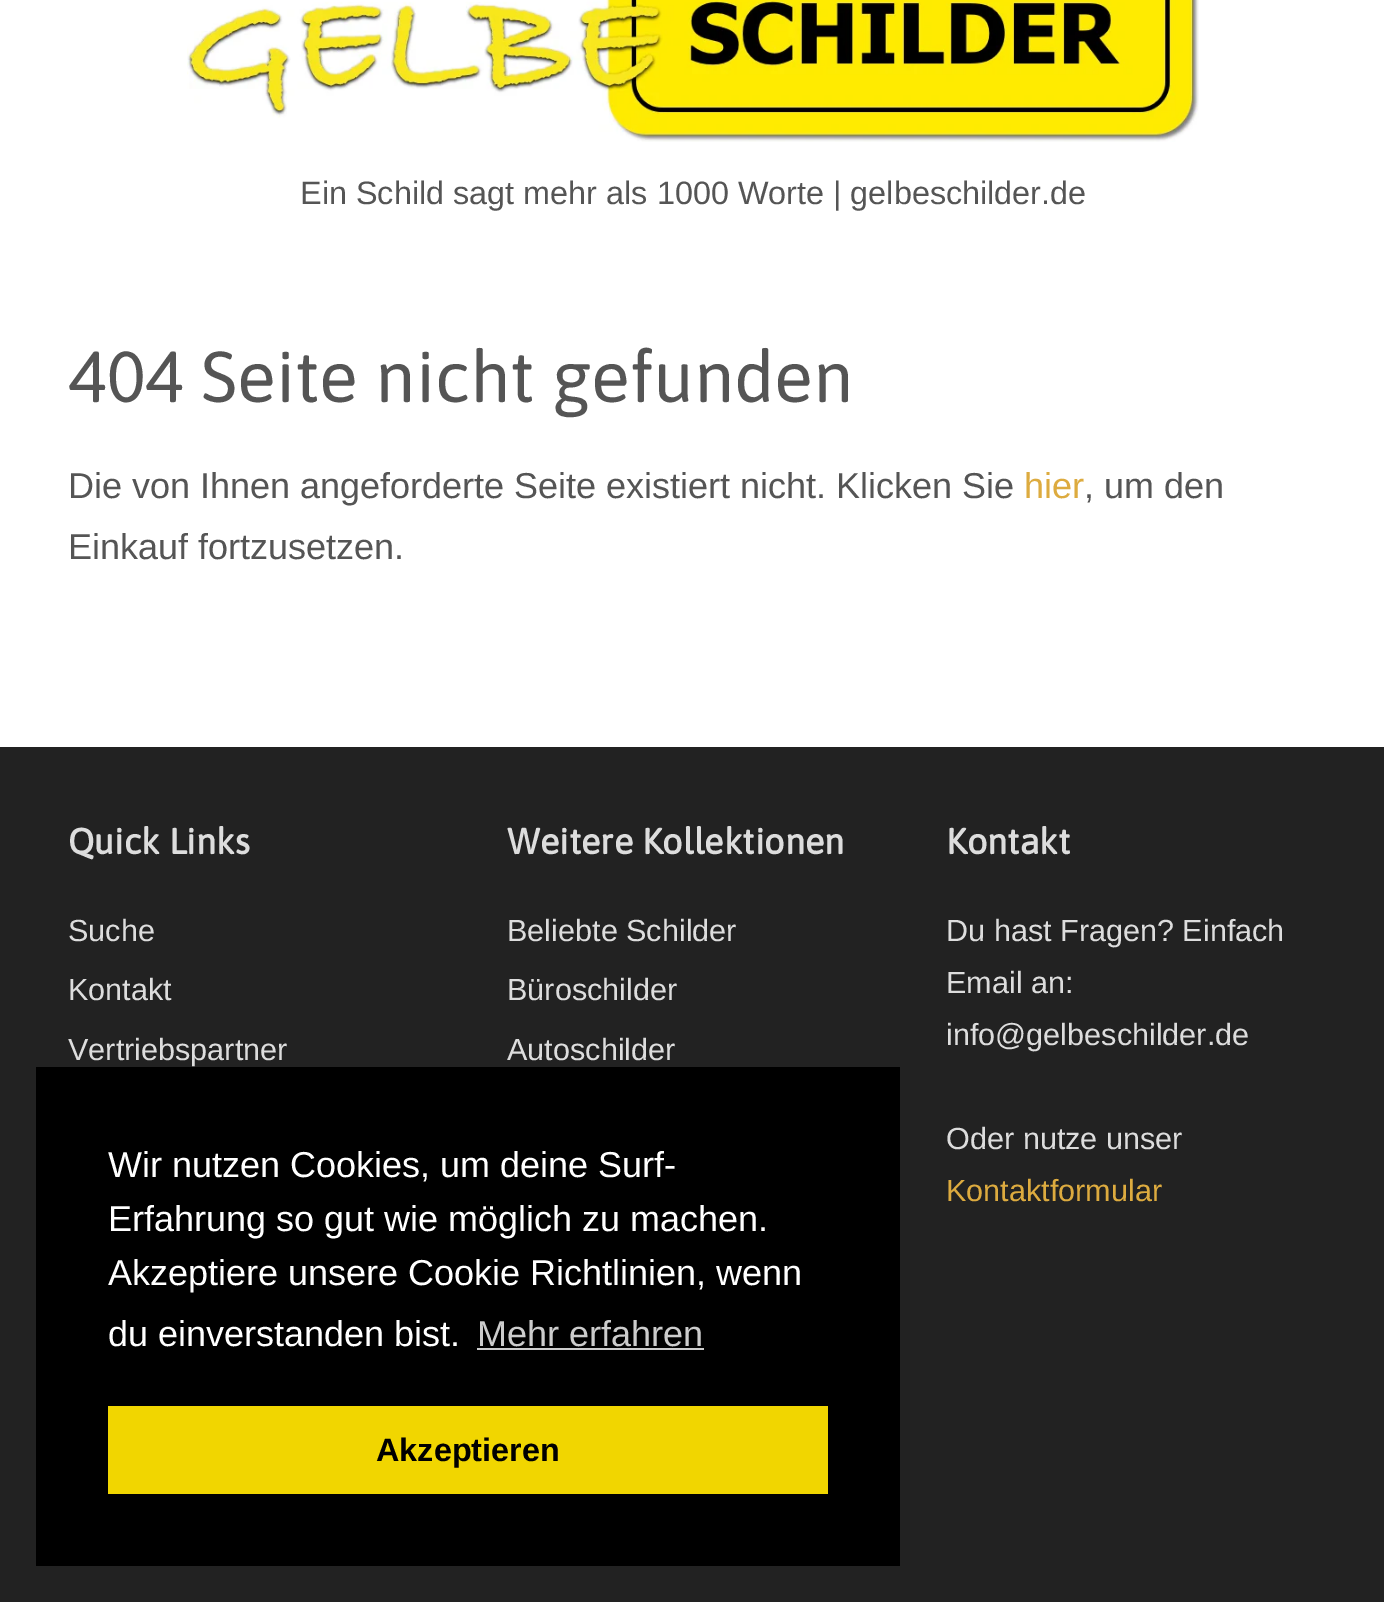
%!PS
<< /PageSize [1384 1602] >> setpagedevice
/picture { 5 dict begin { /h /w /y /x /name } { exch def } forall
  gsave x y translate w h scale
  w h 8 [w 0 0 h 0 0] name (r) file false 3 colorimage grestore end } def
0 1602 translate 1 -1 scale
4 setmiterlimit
1 setgray
0 0 1384 1602 rectfill
(img1.rgb) 187 0 1012 142 picture
/LiberationSans-Regular [32.4 0 0 -32.4 0 0] selectfont
0.333 setgray
300 204 moveto (Ein Schild sagt mehr als 1000 Worte | gelbeschilder.de) show
/Asap-Regular [72 0 0 -72 0 0] selectfont
68 402 moveto (404 Seite nicht gefunden) show
/LiberationSans-Regular [36 0 0 -36 0 0] selectfont
68 498 moveto (Die von Ihnen angeforderte Seite existiert nicht. Klicken Sie) show
0.867 0.671 0.247 setrgbcolor
1024 498 moveto (hier) show
0.333 setgray
1084 498 moveto (, um den) show
68 559 moveto (Einkauf fortzusetzen.) show
0.133 setgray
0 747 1384 855 rectfill
/Asap-Bold [36 0 0 -36 0 0] selectfont
0.867 setgray
68 854 moveto (Quick Links) show
/LiberationSans-Regular [30.6 0 0 -30.6 0 0] selectfont
68 941 moveto (Suche) show
68 1000 moveto (Kontakt) show
68 1060 moveto (Vertriebspartner) show
/Asap-Bold [36 0 0 -36 0 0] selectfont
507 854 moveto (Weitere Kollektionen) show
/LiberationSans-Regular [30.6 0 0 -30.6 0 0] selectfont
507 941 moveto (Beliebte Schilder) show
507 1000 moveto (Büroschilder) show
507 1060 moveto (Autoschilder) show
/Asap-Bold [36 0 0 -36 0 0] selectfont
946 854 moveto (Kontakt) show
/LiberationSans-Regular [30.6 0 0 -30.6 0 0] selectfont
946 941 moveto (Du hast Fragen? Einfach) show
946 993 moveto (Email an:) show
946 1045 moveto (info@gelbeschilder.de) show
946 1149 moveto (Oder nutze unser) show
0.867 0.671 0.247 setrgbcolor
946 1201 moveto (Kontaktformular) show
0 setgray
36 1067 864 499 rectfill
/LiberationSans-Regular [36 0 0 -36 0 0] selectfont
1 setgray
108 1177 moveto (Wir nutzen Cookies, um deine Surf-) show
108 1231 moveto (Erfahrung so gut wie möglich zu machen.) show
108 1285 moveto (Akzeptiere unsere Cookie Richtlinien, wenn) show
108 1346 moveto (du einverstanden bist.) show
0.8 setgray
477 1346 moveto (Mehr erfahren) show
477 1348 227 2 rectfill
0.945 0.839 0 setrgbcolor
108 1406 720 88 rectfill
/LiberationSans-Bold [32.4 0 0 -32.4 0 0] selectfont
0 setgray
376 1461 moveto (Akzeptieren) show
showpage
